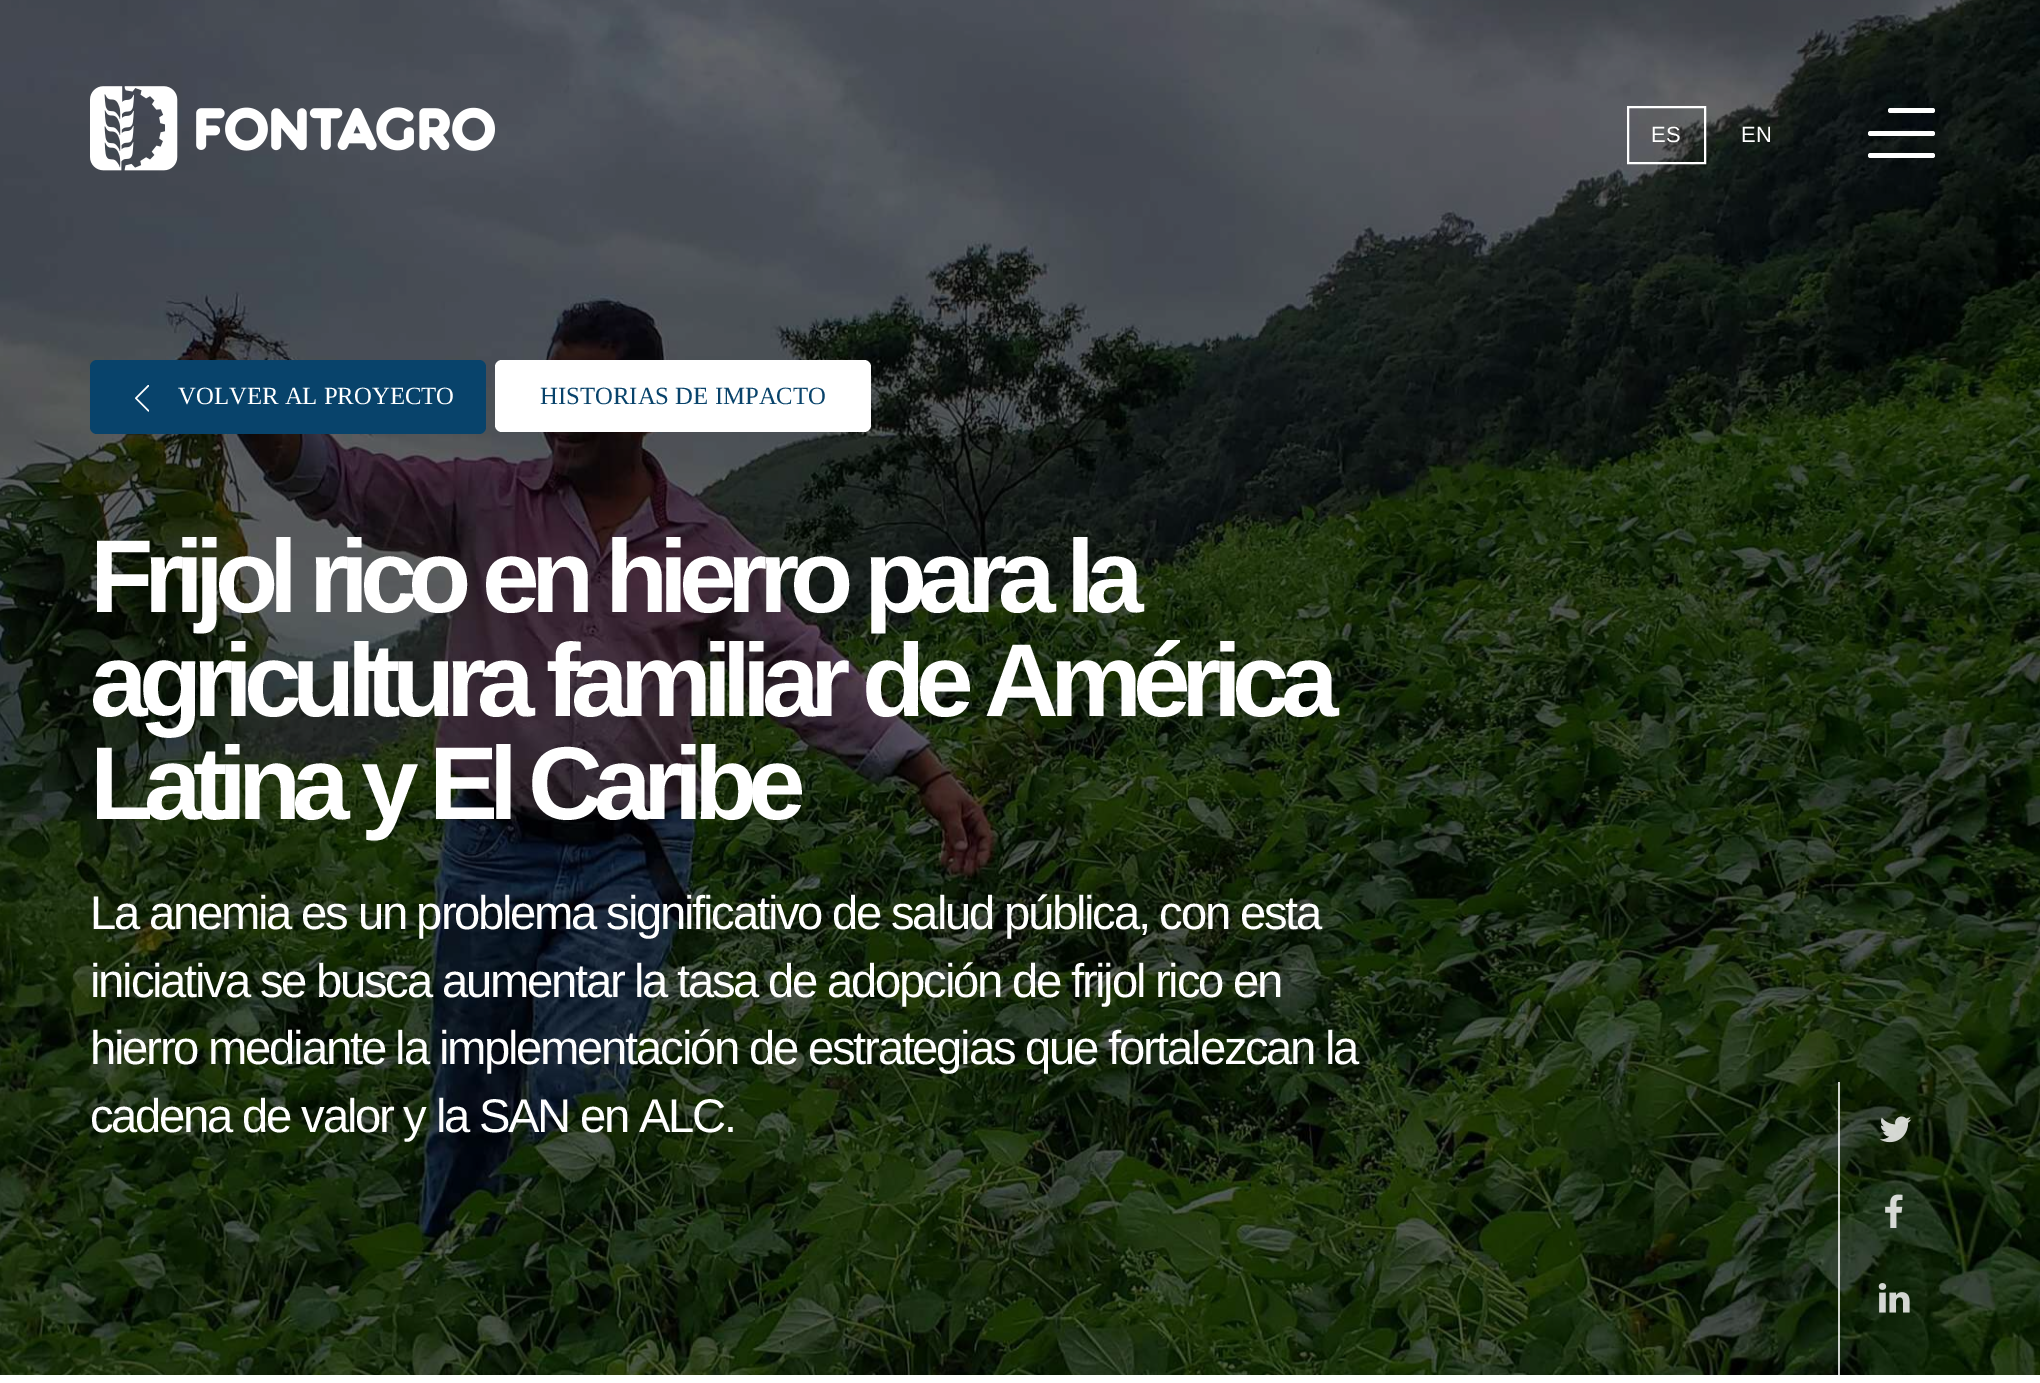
%!PS
<< /PageSize [2040 1383] /PageUsesTransparency true >> setpagedevice
/alpha { dup .setfillconstantalpha .setstrokeconstantalpha } def
/roundrect { 5 dict begin { /r /h /w /y /x } { exch def } forall
  x r add y moveto x w add y 2 copy h add r arct x w add y h add x 1 index r arct
  x y h add x y r arct x y 2 copy exch w add exch r arct closepath end } def
/picture { 5 dict begin { /h /w /y /x /name } { exch def } forall
  gsave x y translate w h scale
  w h 8 [w 0 0 h 0 0] name (r) file false 3 colorimage grestore end } def
0 .pushpdf14devicefilter
0 1383 translate 1 -1 scale
4 setmiterlimit
1 setgray
0 0 2040 1383 rectfill
(img2.rgb) 0 0 2040 1375 picture
(img1.rgb) 90 86 405 85 picture
2 setlinewidth
1628 107 77 56 rectstroke
/LiberationSans-Regular [22 0 0 -22 0 0] selectfont
1651 142 moveto (ES) show
1741 142 moveto (EN) show
1868 131 67 5 2.5 roundrect fill
1888 108 47 5 2.5 roundrect fill
1868 153 67 5 2.5 roundrect fill
0.031 0.263 0.42 setrgbcolor
90 360 396 74 7 roundrect fill
(img3.rgb) 135 385 14 27 picture
/LiberationSerif-Regular [24.75 0 0 -24.75 0 0] selectfont
1 setgray
178 404 moveto (VOLVER AL PROYECTO) show
495 360 376 72 7 roundrect fill
0.031 0.263 0.42 setrgbcolor
540 404 moveto (HISTORIAS DE IMPACTO) show
/LiberationSans-Bold [103.5 0 0 -103.5 0 0] selectfont
1 setgray
90 612 moveto -9 0 (Frijol rico en hierro para la) ashow
90 716 moveto -9 0 (agricultura familiar de América) ashow
90 819 moveto -9 0 (Latina y El Caribe) ashow
/LiberationSans-Regular [47.25 0 0 -47.25 0 0] selectfont
90 929 moveto -2.25 0 (La anemia es un problema significativo de salud pública, con esta) ashow
90 997 moveto -2.25 0 (iniciativa se busca aumentar la tasa de adopción de frijol rico en) ashow
90 1064 moveto -2.25 0 (hierro mediante la implementación de estrategias que fortalezcan la) ashow
90 1132 moveto -2.25 0 (cadena de valor y la SAN en ALC.) ashow
0.81 alpha
1838 1082 2 293 rectfill
1 alpha
(img4.rgb) 1879 1116 33 27 picture
(img5.rgb) 1885 1194 18 34 picture
(img6.rgb) 1878 1283 32 30 picture
.poppdf14devicefilter showpage
